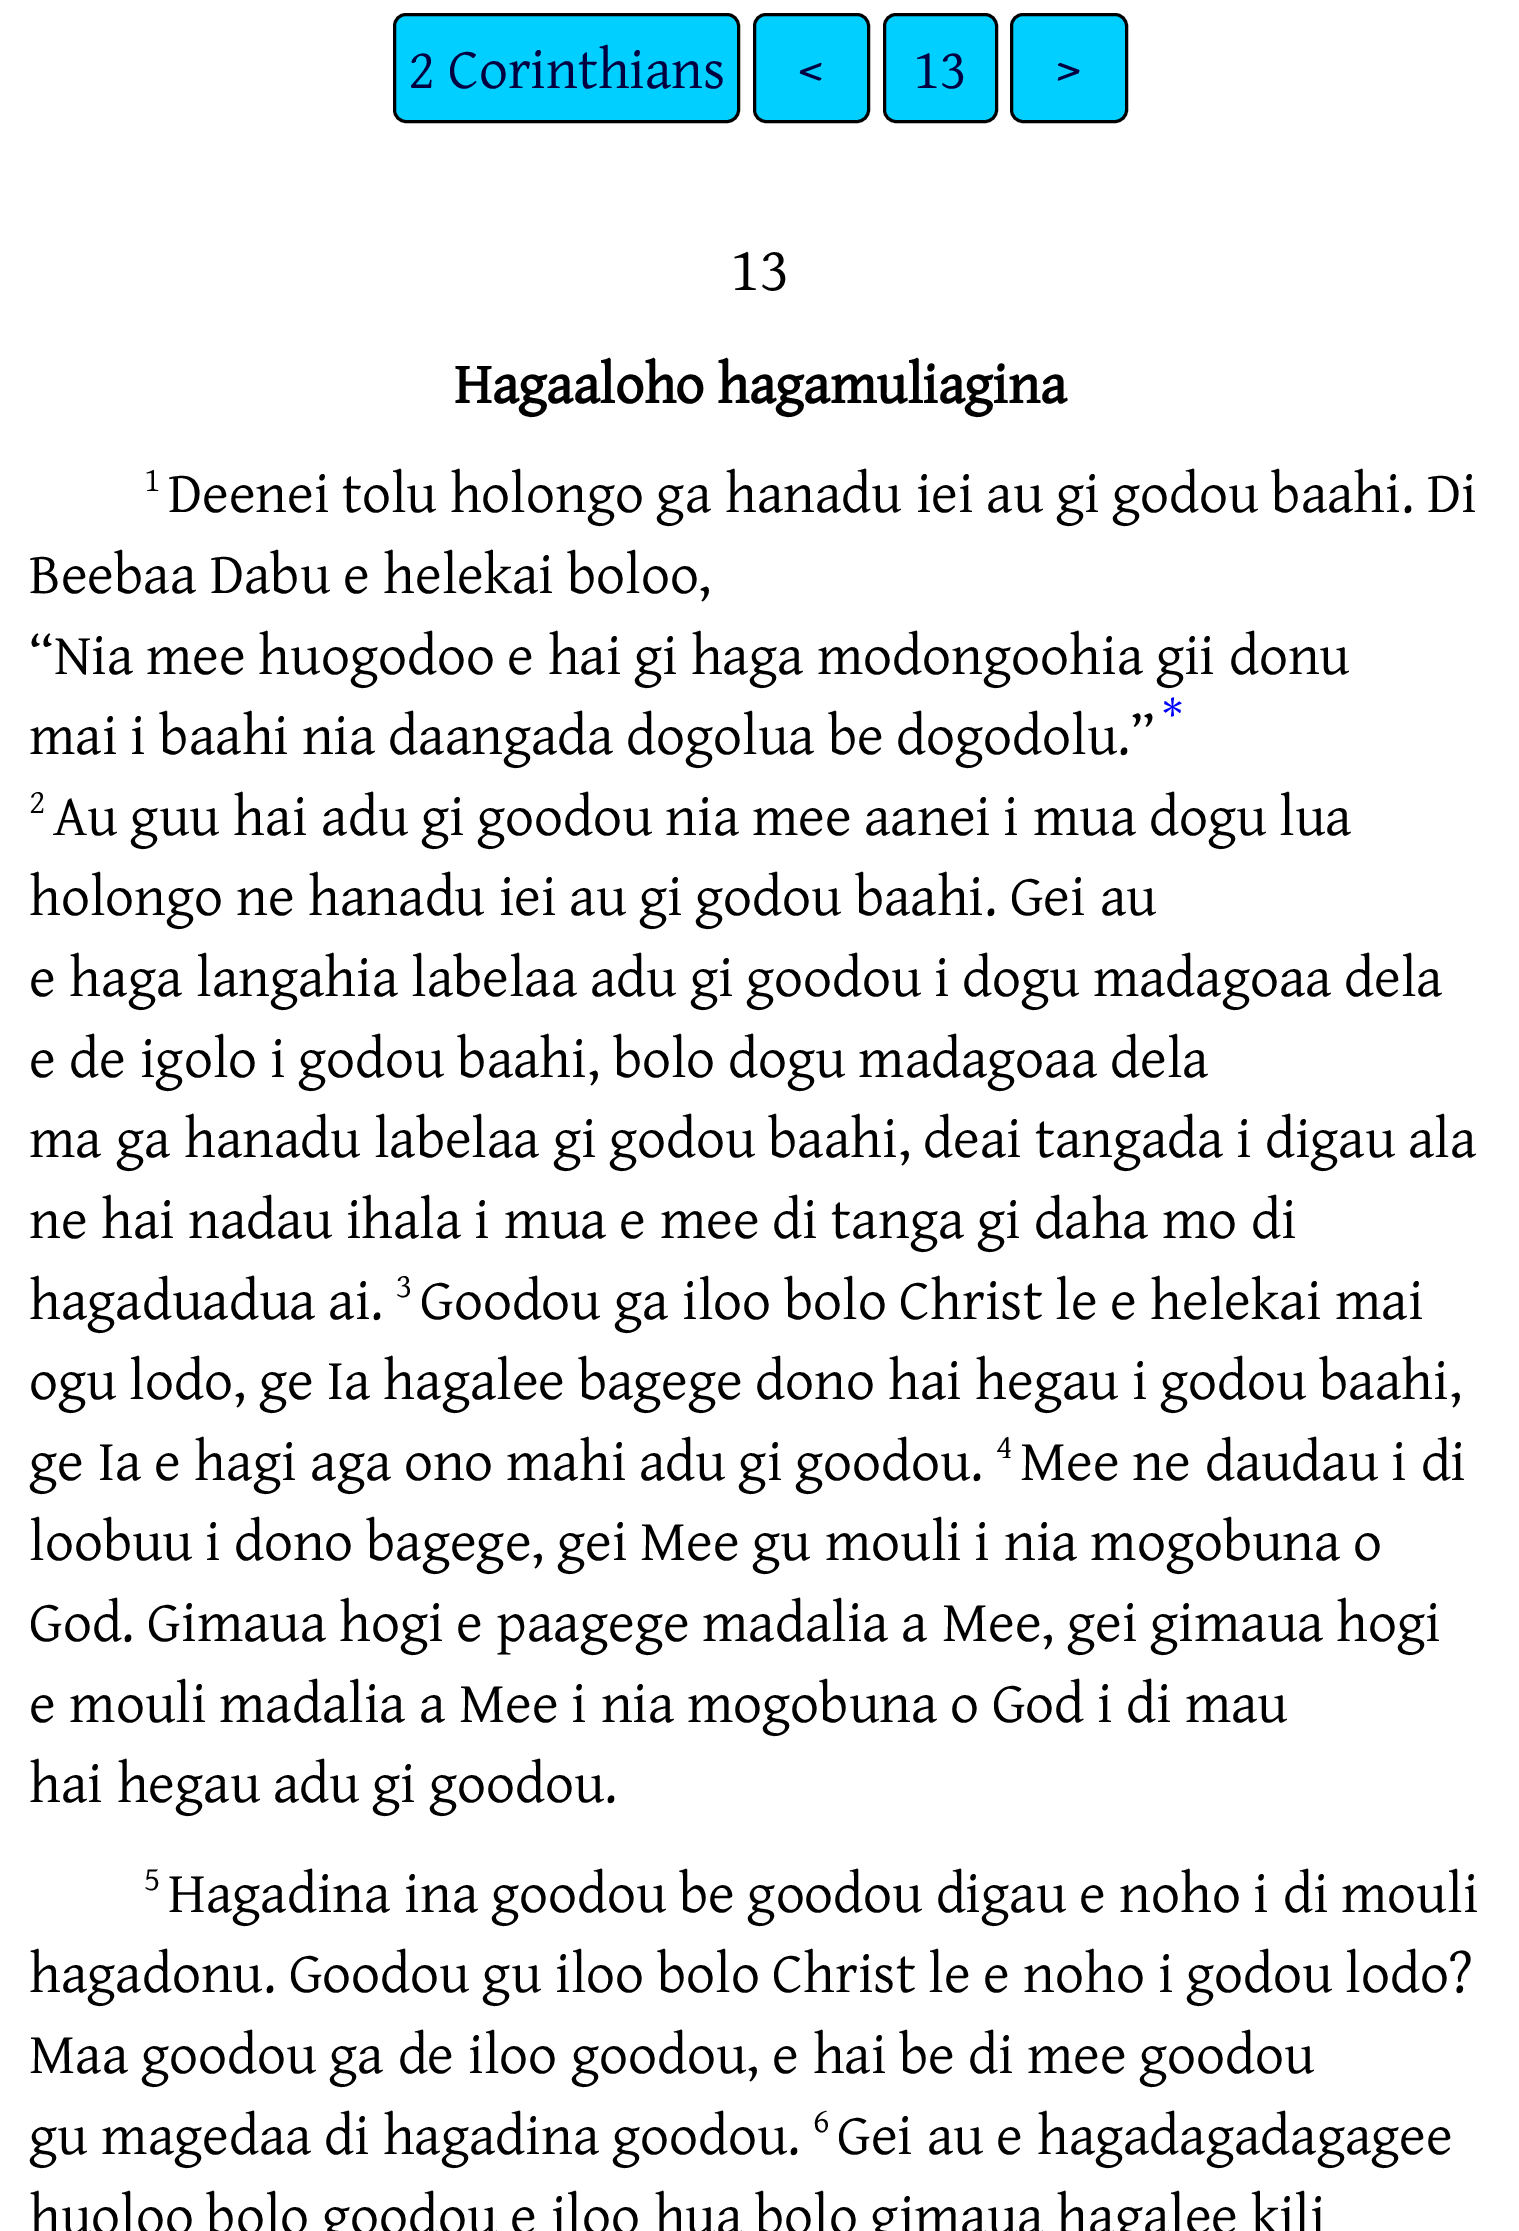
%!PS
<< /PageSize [1519 2231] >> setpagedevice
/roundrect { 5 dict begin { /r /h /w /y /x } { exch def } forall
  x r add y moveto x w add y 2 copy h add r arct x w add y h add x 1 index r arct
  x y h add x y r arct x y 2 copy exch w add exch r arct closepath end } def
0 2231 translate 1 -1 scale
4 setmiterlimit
1 setgray
0 0 1519 2231 rectfill
0 0.812 1 setrgbcolor
394.5 14.5 344 107 11.5 roundrect gsave fill grestore
0 setgray
3 setlinewidth
stroke
/GentiumPlus-Regular [57.6 0 0 -57.6 0 0] selectfont
0 0 0.251 setrgbcolor
408 88 moveto (2 Corinthians) show
0 0.812 1 setrgbcolor
754.5 14.5 114 107 11.5 roundrect gsave fill grestore
0 setgray
stroke
0 0 0.251 setrgbcolor
798 88 moveto (<) show
0 0.812 1 setrgbcolor
884.5 14.5 112 107 11.5 roundrect gsave fill grestore
0 setgray
stroke
0 0 0.251 setrgbcolor
913 88 moveto (13) show
0 0.812 1 setrgbcolor
1011.5 14.5 115 107 11.5 roundrect gsave fill grestore
0 setgray
stroke
0 0 0.251 setrgbcolor
1056 88 moveto (>) show
/GentiumPlus-Regular [63 0 0 -63 0 0] selectfont
0 setgray
730 290 moveto (13) show
/GentiumPlus-Bold [57.6 0 0 -57.6 0 0] selectfont
454 403 moveto (Hagaaloho hagamuliagina) show
/GentiumPlus-Regular [35 0 0 -35 0 0] selectfont
144 491 moveto (1) show
/GentiumPlus-Regular [57.6 0 0 -57.6 0 0] selectfont
168 512 moveto (Deenei tolu holongo ga hanadu iei au gi godou baahi. Di) show
29 593 moveto (Beebaa Dabu e helekai boloo,) show
29 674 moveto (“Nia mee huogodoo e hai gi haga modongoohia gii donu) show
/GentiumPlus-Regular [47 0 0 -47 0 0] selectfont
0 0 1 setrgbcolor
1162 733 moveto (*) show
/GentiumPlus-Regular [57.6 0 0 -57.6 0 0] selectfont
0 setgray
29 754 moveto (mai i baahi nia daangada dogolua be dogodolu.”) show
/GentiumPlus-Regular [35 0 0 -35 0 0] selectfont
29 813 moveto (2) show
/GentiumPlus-Regular [57.6 0 0 -57.6 0 0] selectfont
53 835 moveto (Au guu hai adu gi goodou nia mee aanei i mua dogu lua) show
29 915 moveto (holongo ne hanadu iei au gi godou baahi. Gei au) show
29 996 moveto (e haga langahia labelaa adu gi goodou i dogu madagoaa dela) show
29 1077 moveto (e de igolo i godou baahi, bolo dogu madagoaa dela) show
29 1157 moveto (ma ga hanadu labelaa gi godou baahi, deai tangada i digau ala) show
29 1238 moveto (ne hai nadau ihala i mua e mee di tanga gi daha mo di) show
29 1319 moveto (hagaduadua ai.) show
/GentiumPlus-Regular [35 0 0 -35 0 0] selectfont
396 1297 moveto (3) show
/GentiumPlus-Regular [57.6 0 0 -57.6 0 0] selectfont
420 1319 moveto (Goodou ga iloo bolo Christ le e helekai mai) show
29 1399 moveto (ogu lodo, ge Ia hagalee bagege dono hai hegau i godou baahi,) show
29 1480 moveto (ge Ia e hagi aga ono mahi adu gi goodou.) show
/GentiumPlus-Regular [35 0 0 -35 0 0] selectfont
996 1458 moveto (4) show
/GentiumPlus-Regular [57.6 0 0 -57.6 0 0] selectfont
1020 1480 moveto (Mee ne daudau i di) show
29 1560 moveto (loobuu i dono bagege, gei Mee gu mouli i nia mogobuna o) show
29 1641 moveto (God. Gimaua hogi e paagege madalia a Mee, gei gimaua hogi) show
29 1722 moveto (e mouli madalia a Mee i nia mogobuna o God i di mau) show
29 1802 moveto (hai hegau adu gi goodou.) show
/GentiumPlus-Regular [35 0 0 -35 0 0] selectfont
144 1890 moveto (5) show
/GentiumPlus-Regular [57.6 0 0 -57.6 0 0] selectfont
168 1912 moveto (Hagadina ina goodou be goodou digau e noho i di mouli) show
29 1992 moveto (hagadonu. Goodou gu iloo bolo Christ le e noho i godou lodo?) show
29 2073 moveto (Maa goodou ga de iloo goodou, e hai be di mee goodou) show
29 2154 moveto (gu magedaa di hagadina goodou.) show
/GentiumPlus-Regular [35 0 0 -35 0 0] selectfont
813 2132 moveto (6) show
/GentiumPlus-Regular [57.6 0 0 -57.6 0 0] selectfont
837 2154 moveto (Gei au e hagadagadagagee) show
29 2234 moveto (huoloo bolo goodou e iloo hua bolo gimaua hagalee kili) show
showpage
